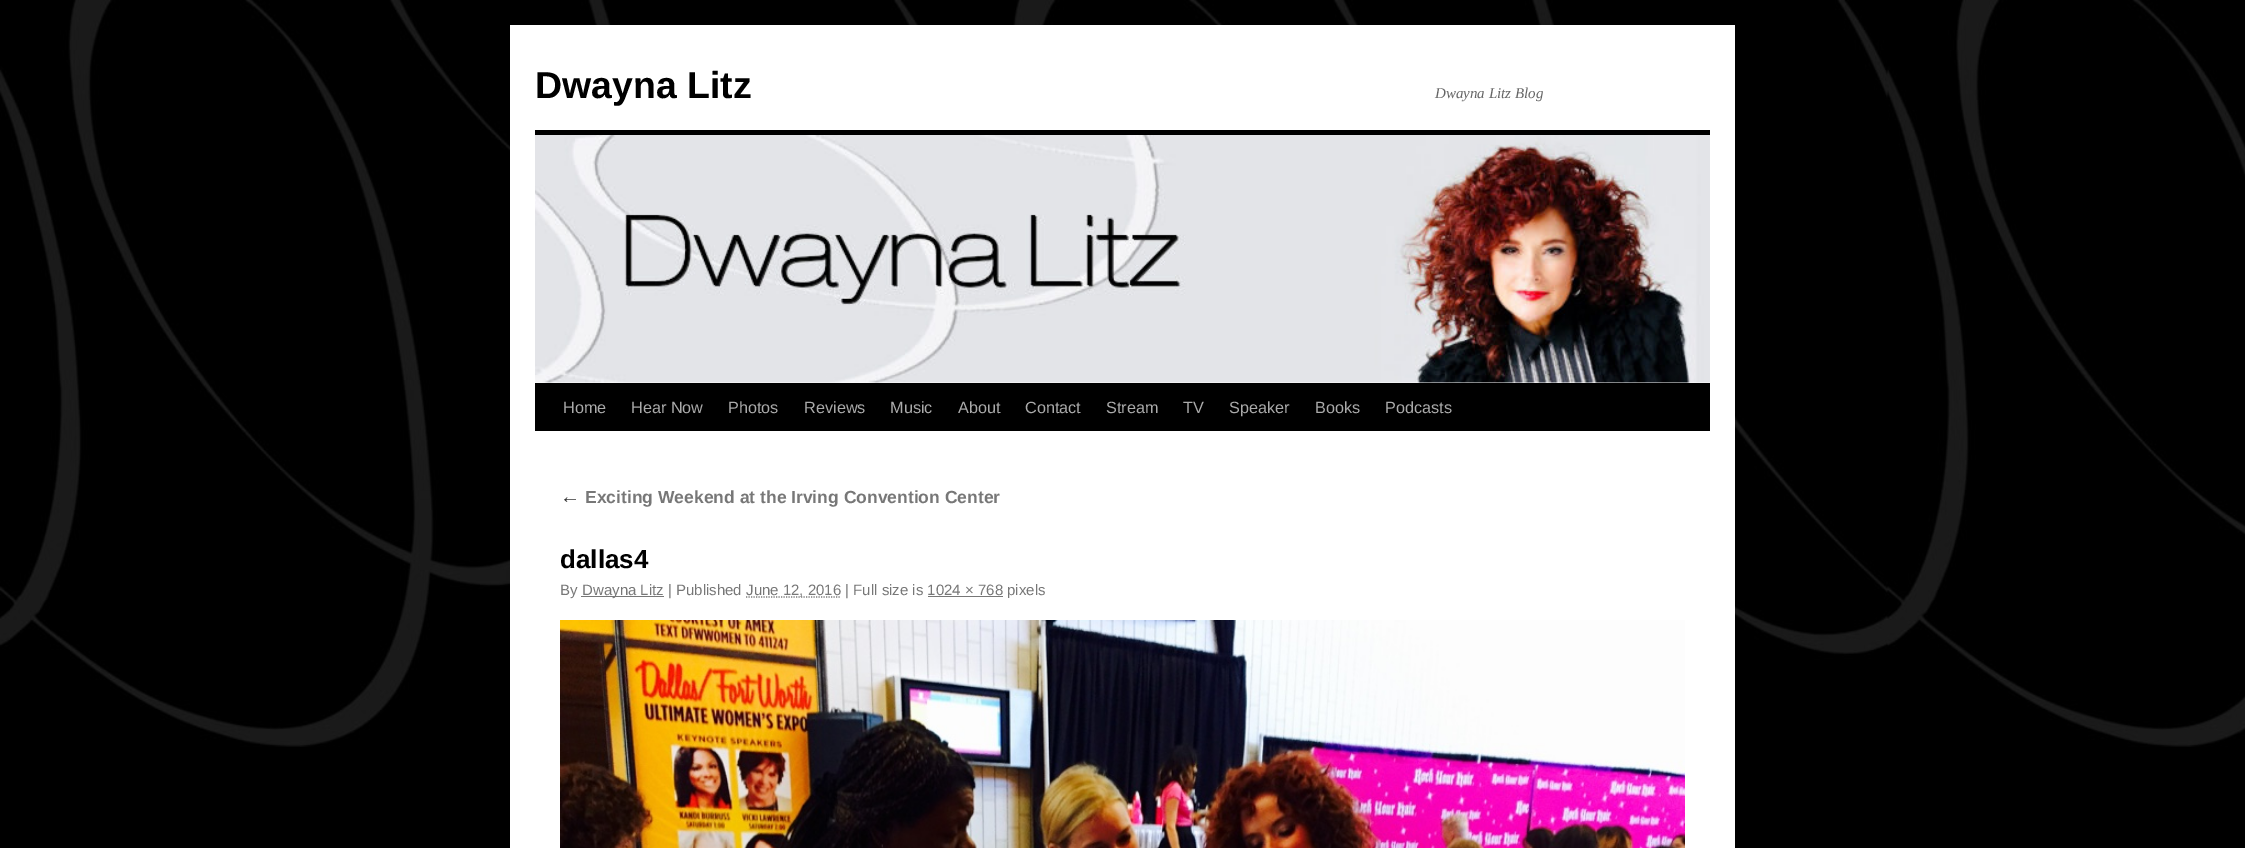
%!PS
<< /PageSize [2245 848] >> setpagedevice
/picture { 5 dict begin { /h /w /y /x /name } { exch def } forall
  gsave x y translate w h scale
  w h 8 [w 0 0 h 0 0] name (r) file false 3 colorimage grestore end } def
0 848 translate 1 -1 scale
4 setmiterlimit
0 setgray
0 0 2245 848 rectfill
(img1.rgb) 0 0 2245 747 picture
1 setgray
510 25 1225 823 rectfill
/LiberationSans-Bold [37.5 0 0 -37.5 0 0] selectfont
0 setgray
535 98 moveto (Dwayna Litz) show
/LiberationSerif-Italic [15 0 0 -15 0 0] selectfont
0.4 setgray
1435 98 moveto (Dwayna Litz Blog) show
0 setgray
535 130 1175 5 rectfill
535 383 1175 48 rectfill
(img2.rgb) 535 135 1175 248 picture
/LiberationSans-Regular [16.25 0 0 -16.25 0 0] selectfont
0.667 setgray
563 413 moveto (Home) show
631 413 moveto (Hear Now) show
728 413 moveto (Photos) show
804 413 moveto (Reviews) show
890 413 moveto (Music) show
958 413 moveto (About) show
1025 413 moveto (Contact) show
1106 413 moveto (Stream) show
1183 413 moveto (TV) show
1229 413 moveto (Speaker) show
1315 413 moveto (Books) show
1385 413 moveto (Podcasts) show
/LiberationSerif-Italic [20 0 0 -20 0 0] selectfont
0.2 setgray
560 503 moveto (←) show
/LiberationSans-Bold [17.5 0 0 -17.5 0 0] selectfont
0.467 setgray
585 503 moveto (Exciting Weekend at the Irving Convention Center) show
/LiberationSans-Bold [26 0 0 -26 0 0] selectfont
0 setgray
560 568 moveto (dallas4) show
/LiberationSans-Regular [15 0 0 -15 0 0] selectfont
0.467 setgray
560 595 moveto (By) show
581 596 83 1 rectfill
582 595 moveto (Dwayna Litz | Published) show
1.2 setlinewidth
[1.25 1.25] 0 setdash
newpath 746 597 moveto 841 597 lineto stroke
746 595 moveto (June 12, 2016 | Full size is 1024 × 768 pixels) show
928 596 75 1 rectfill
(img3.rgb) 560 620 1125 228 picture
showpage
